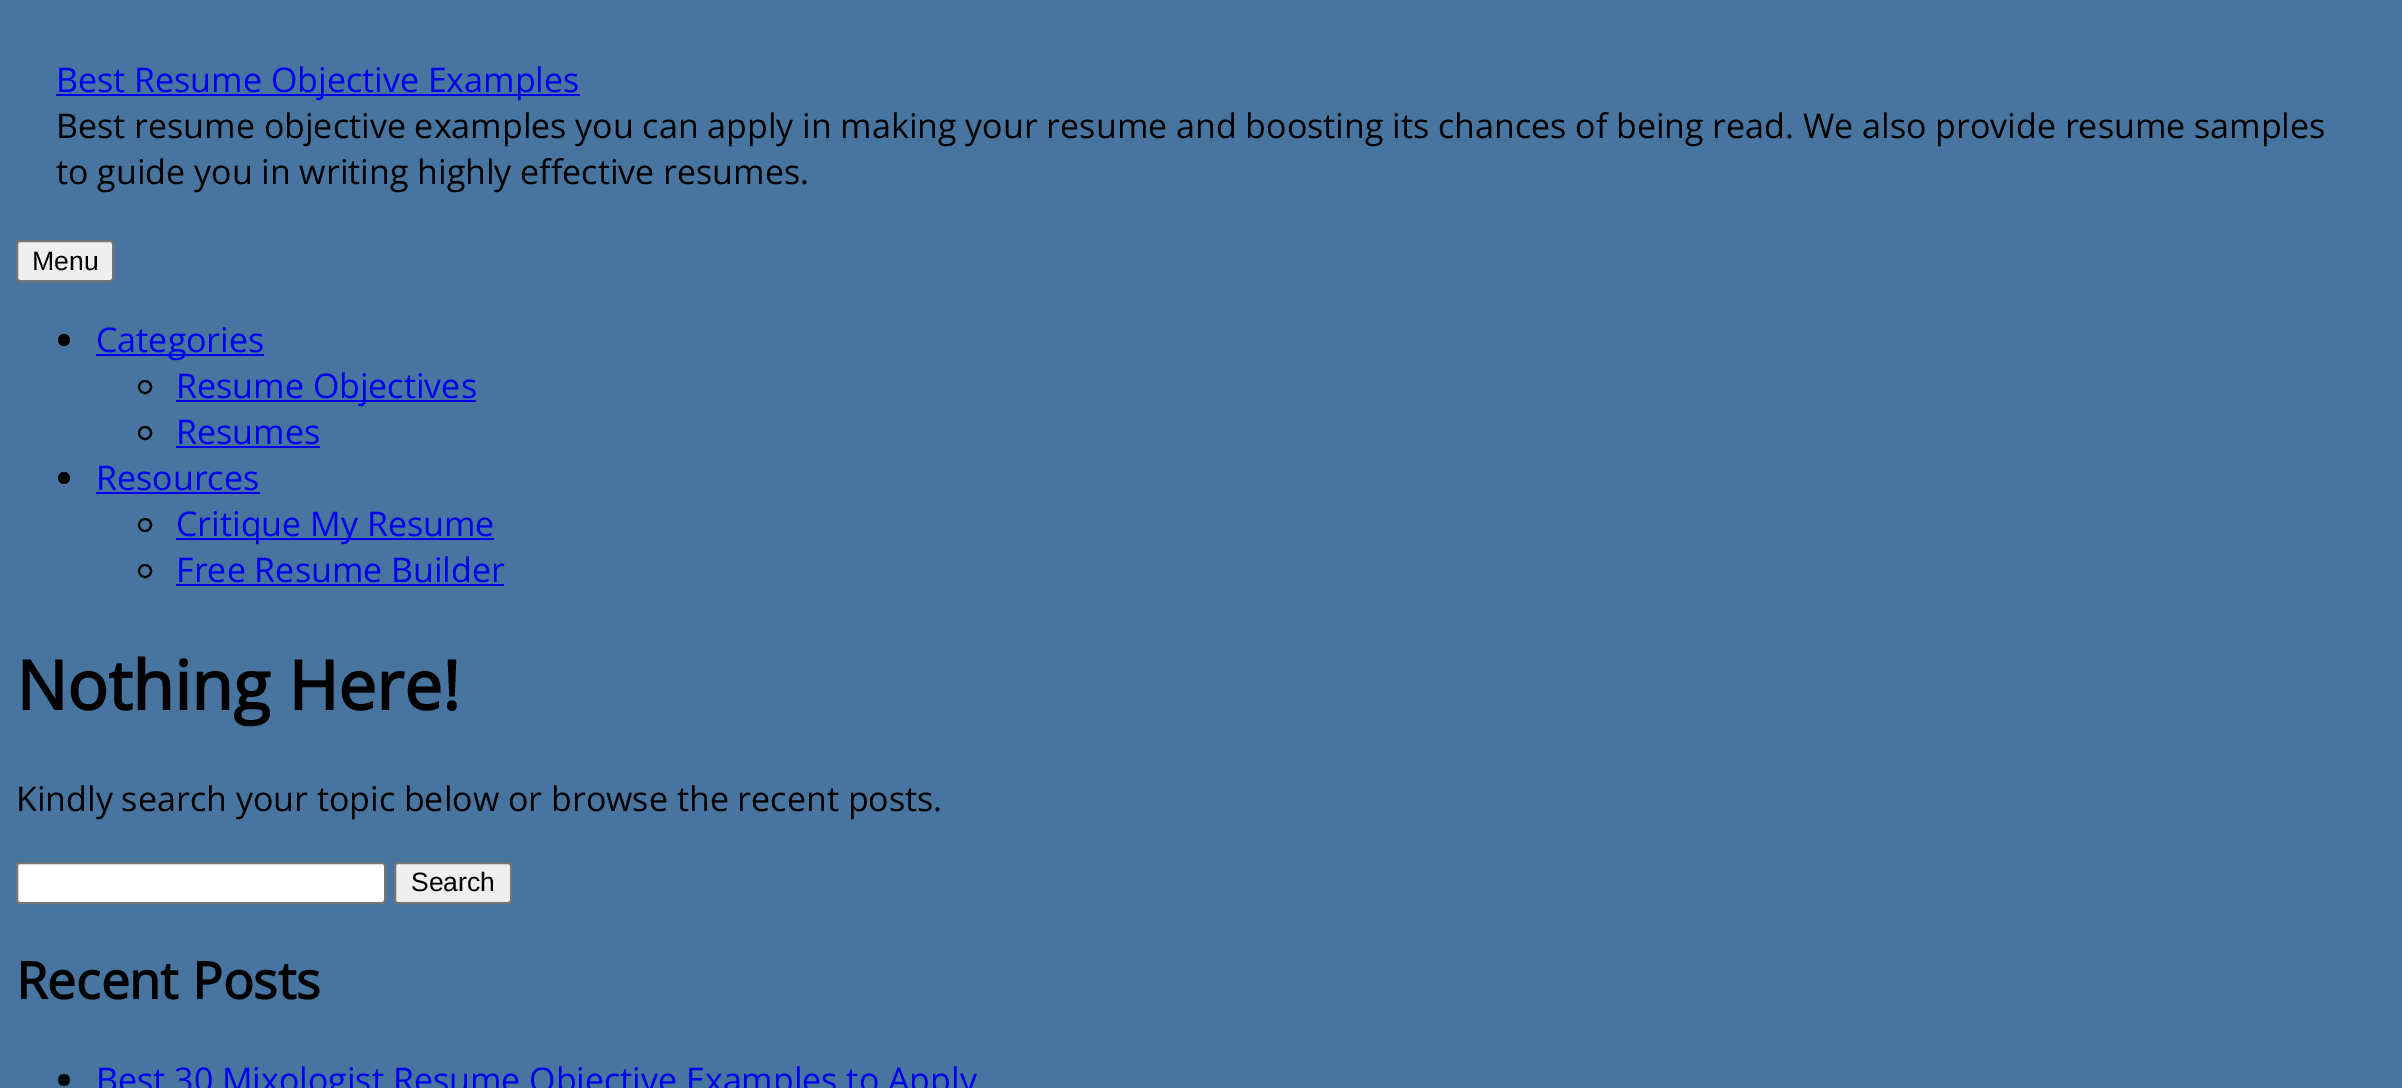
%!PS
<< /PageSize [2402 1088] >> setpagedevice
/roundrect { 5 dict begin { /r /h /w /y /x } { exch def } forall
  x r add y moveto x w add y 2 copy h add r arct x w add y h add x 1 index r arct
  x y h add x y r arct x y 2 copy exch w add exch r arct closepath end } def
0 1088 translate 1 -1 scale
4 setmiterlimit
0.282 0.459 0.624 setrgbcolor
0 0 2402 1088 rectfill
0 0 0.933 setrgbcolor
56 94 524 2 rectfill
/OpenSans-Regular [34 0 0 -34 0 0] selectfont
56 92 moveto (Best Resume Objective Examples) show
0 setgray
56 138 moveto (Best resume objective examples you can apply in making your resume and boosting its chances of being read. We also provide resume samples) show
56 184 moveto (to guide you in writing highly effective resumes.) show
0.937 setgray
17 241 96 40 3 roundrect gsave fill grestore
0.463 setgray
2 setlinewidth
stroke
/LiberationSans-Regular [26.5 0 0 -26.5 0 0] selectfont
0 setgray
32 270 moveto (Menu) show
newpath 64 340 6 0 360 arc closepath fill
0 0 0.933 setrgbcolor
96 354 168 2 rectfill
/OpenSans-Regular [34 0 0 -34 0 0] selectfont
96 352 moveto (Categories) show
0 setgray
newpath 145 387 6 0 360 arc closepath stroke
0 0 0.933 setrgbcolor
176 400 300 2 rectfill
176 398 moveto (Resume Objectives) show
0 setgray
newpath 145 433 6 0 360 arc closepath stroke
0 0 0.933 setrgbcolor
176 444 moveto (Resumes) show
176 446 144 2 rectfill
0 setgray
newpath 64 478 6 0 360 arc closepath fill
0 0 0.933 setrgbcolor
96 490 moveto (Resources) show
96 492 164 2 rectfill
0 setgray
newpath 145 525 6 0 360 arc closepath stroke
0 0 0.933 setrgbcolor
176 538 318 2 rectfill
176 536 moveto (Critique My Resume) show
0 setgray
newpath 145 571 6 0 360 arc closepath stroke
0 0 0.933 setrgbcolor
176 582 moveto (Free Resume Builder) show
176 584 328 2 rectfill
/OpenSans-Bold [68 0 0 -68 0 0] selectfont
0 setgray
16 710 moveto (Nothing Here!) show
/OpenSans-Regular [34 0 0 -34 0 0] selectfont
16 811 moveto (Kindly search your topic below or browse the recent posts.) show
1 setgray
17 863 368 40 3 roundrect gsave fill grestore
0.463 setgray
stroke
0.937 setgray
395 863 116 40 3 roundrect gsave fill grestore
0.463 setgray
stroke
/LiberationSans-Regular [26.5 0 0 -26.5 0 0] selectfont
0 setgray
411 891 moveto (Search) show
/OpenSans-Bold [51 0 0 -51 0 0] selectfont
16 999 moveto (Recent Posts) show
newpath 64 1080 6 0 360 arc closepath fill
/OpenSans-Regular [34 0 0 -34 0 0] selectfont
0 0 0.933 setrgbcolor
96 1092 moveto (Best 30 Mixologist Resume Objective Examples to Apply) show
showpage
